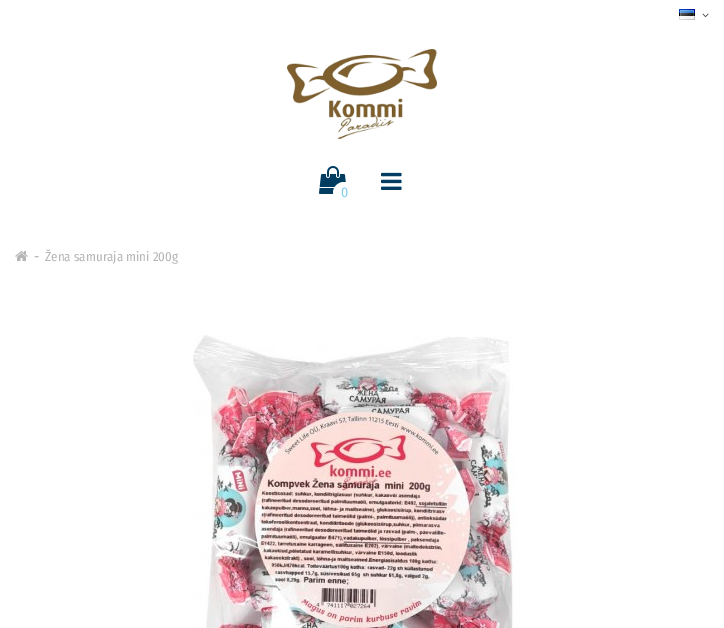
%!PS
<< /PageSize [724 628] >> setpagedevice
/picture { 5 dict begin { /h /w /y /x /name } { exch def } forall
  gsave x y translate w h scale
  w h 8 [w 0 0 h 0 0] name (r) file false 3 colorimage grestore end } def
0 628 translate 1 -1 scale
4 setmiterlimit
1 setgray
0 0 724 628 rectfill
(img1.rgb) 679 9 16 11 picture
(img2.rgb) 702 13 7 5 picture
(img3.rgb) 287 49 150 90 picture
(img4.rgb) 381 172 21 18 picture
(img5.rgb) 319 166 27 28 picture
newpath 344 193 11 0 360 arc closepath fill
/FiraSansCondensed-Regular [14 0 0 -14 0 0] selectfont
0.498 0.808 0.941 setrgbcolor
341 197 moveto (0) show
(img6.rgb) 15 251 13 10 picture
0.714 setgray
34 261 moveto (-) show
/FiraSansCondensed-Regular [13 0 0 -13 0 0] selectfont
45 261 moveto (Žena samuraja mini 200g) show
(img7.rgb) 193 335 323 293 picture
showpage
